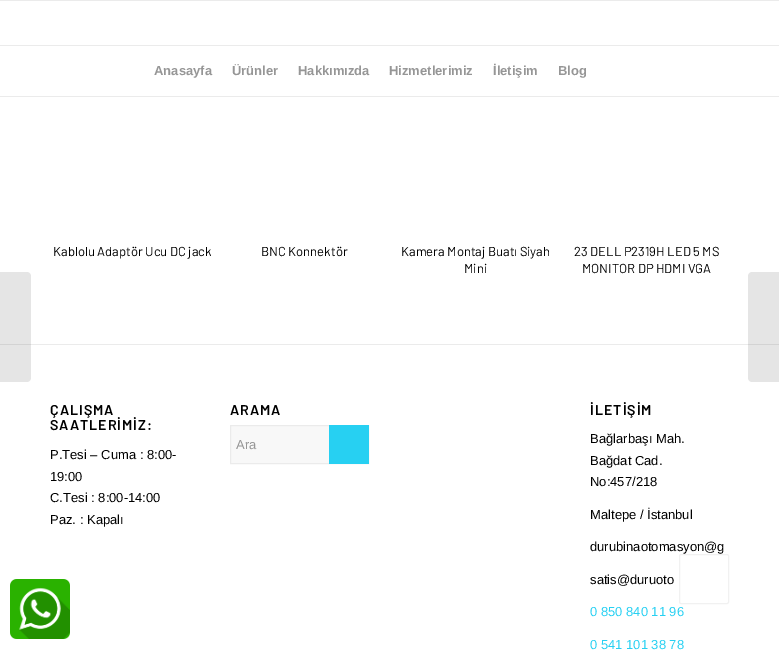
%!PS
<< /PageSize [779 654] /PageUsesTransparency true >> setpagedevice
/alpha { dup .setfillconstantalpha .setstrokeconstantalpha } def
/roundrect { 5 dict begin { /r /h /w /y /x } { exch def } forall
  x r add y moveto x w add y 2 copy h add r arct x w add y h add x 1 index r arct
  x y h add x y r arct x y 2 copy exch w add exch r arct closepath end } def
/picture { 5 dict begin { /h /w /y /x /name } { exch def } forall
  gsave x y translate w h scale
  w h 8 [w 0 0 h 0 0] name (r) file false 3 colorimage grestore end } def
0 .pushpdf14devicefilter
0 654 translate 1 -1 scale
4 setmiterlimit
1 setgray
0 0 779 654 rectfill
0.922 setgray
0 0 779 1 rectfill
0 96 779 1 rectfill
0 45 779 1 rectfill
/LiberationSans-Bold [13 0 0 -13 0 0] selectfont
0.588 setgray
154 75 moveto (Anasayfa) show
232 75 moveto (Ürünler) show
298 75 moveto (Hakkımızda) show
389 75 moveto (Hizmetlerimiz) show
493 75 moveto (İletişim) show
558 75 moveto (Blog) show
0.922 setgray
0 344 779 1 rectfill
0.1 alpha
0 setgray
newpath 0 272 moveto 27 272 lineto 29 272 31 274 31 276 curveto 31 378 lineto 31 380 29 382 27 382 curveto 0 382 lineto closepath fill
/Barlow-Regular [13 0 0 -13 0 0] selectfont
1 alpha
53 256 moveto (Kablolu Adaptör Ucu DC jack) show
261 256 moveto (BNC Konnektör) show
401 256 moveto (Kamera Montaj Buatı Siyah) show
464 273 moveto (Mini) show
574 256 moveto (23 DELL P2319H LED 5 MS) show
582 273 moveto (MONITOR DP HDMI VGA) show
/Barlow-SemiBold [14.25 0 0 -14.25 0 0] selectfont
50 415 moveto 1 0 (ÇALIŞMA) ashow
50 430 moveto 1 0 (SAATLERİMİZ:) ashow
/LiberationSans-Regular [13 0 0 -13 0 0] selectfont
50 459 moveto (P.Tesi – Cuma : 8:00-) show
50 481 moveto (19:00) show
50 502 moveto (C.Tesi : 8:00-14:00) show
50 524 moveto (Paz. : Kapalı) show
/Barlow-SemiBold [14.25 0 0 -14.25 0 0] selectfont
230 415 moveto 1 0 (ARAMA) ashow
0.973 setgray
231 426 98 37 rectfill
0.922 setgray
230.5 425.5 138 38 rectstroke
/LiberationSans-Regular [13 0 0 -13 0 0] selectfont
0.588 setgray
236 449 moveto (Ara) show
0.153 0.816 0.949 setrgbcolor
329 425 40 39 rectfill
/Barlow-SemiBold [14.25 0 0 -14.25 0 0] selectfont
0 setgray
590 415 moveto 1 0 (İLETİŞİM) ashow
/LiberationSans-Regular [13 0 0 -13 0 0] selectfont
590 443 moveto (Bağlarbaşı Mah.) show
590 465 moveto (Bağdat Cad.) show
590 486 moveto (No:457/218) show
590 519 moveto (Maltepe / İstanbul) show
590 551 moveto (durubinaotomasyon@g) show
590 584 moveto (satis@duruoto) show
0.153 0.816 0.949 setrgbcolor
590 616 moveto (0 850 840 11 96) show
590 649 moveto (0 541 101 38 78) show
0.1 alpha
0 setgray
newpath 752 272 moveto 779 272 lineto 779 382 lineto 752 382 lineto 750 382 748 380 748 378 curveto 748 276 lineto 748 274 750 272 752 272 curveto closepath fill
1 alpha
(img1.rgb) 10 579 60 60 picture
0.7 alpha
0.922 setgray
679.5 554.5 49 49 1.5 roundrect stroke
.poppdf14devicefilter showpage
